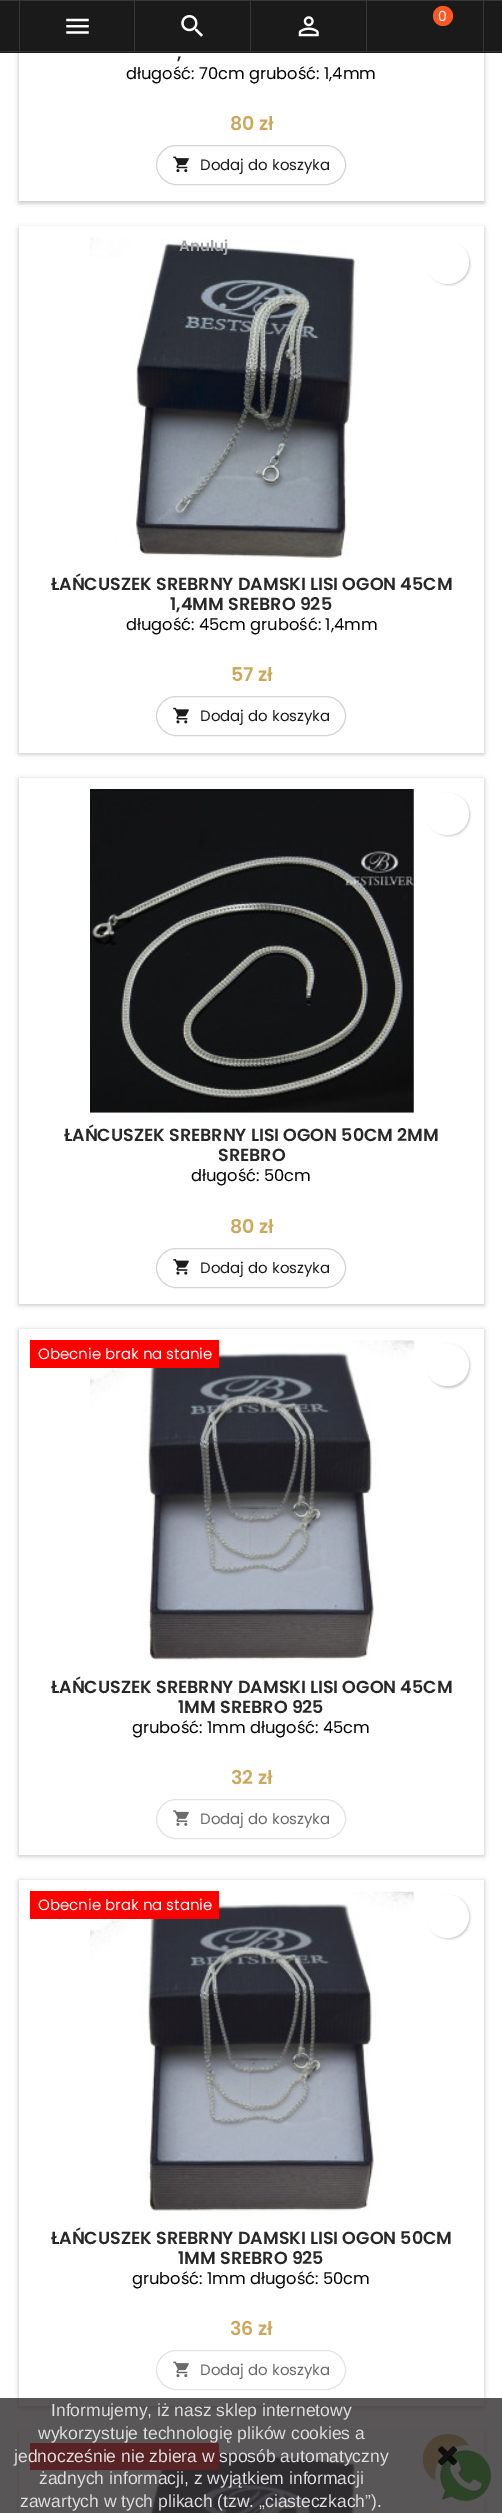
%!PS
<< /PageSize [502 2513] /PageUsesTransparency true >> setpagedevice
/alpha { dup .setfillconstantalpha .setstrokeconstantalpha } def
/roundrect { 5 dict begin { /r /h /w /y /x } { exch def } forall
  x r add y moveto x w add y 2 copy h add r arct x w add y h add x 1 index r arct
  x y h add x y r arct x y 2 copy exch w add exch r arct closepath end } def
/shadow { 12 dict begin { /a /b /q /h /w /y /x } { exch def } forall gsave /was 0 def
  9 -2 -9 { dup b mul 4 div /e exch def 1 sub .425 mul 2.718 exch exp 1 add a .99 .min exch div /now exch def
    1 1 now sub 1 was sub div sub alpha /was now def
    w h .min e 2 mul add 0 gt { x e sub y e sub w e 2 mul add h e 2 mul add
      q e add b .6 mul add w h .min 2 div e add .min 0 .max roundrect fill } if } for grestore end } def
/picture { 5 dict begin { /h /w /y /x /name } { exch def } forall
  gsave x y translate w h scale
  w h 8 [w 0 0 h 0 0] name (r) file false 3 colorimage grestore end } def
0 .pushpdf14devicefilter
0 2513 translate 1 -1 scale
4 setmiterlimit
1 setgray
0 0 502 2513 rectfill
0 setgray
19 -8 465 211 0 2.5 0.24 shadow
0.106 0.102 0.106 setrgbcolor
0 1 502 52 rectfill
0.212 setgray
0 0 502 1 rectfill
0 51 502 1 rectfill
134 1 1 50 rectfill
19 1 1 50 rectfill
(img1.rgb) 66 18 23 16 picture
250 1 1 50 rectfill
(img2.rgb) 181 15 22 22 picture
366 1 1 50 rectfill
(img3.rgb) 298 16 21 21 picture
483 1 1 50 rectfill
1 0.341 0.133 setrgbcolor
newpath 443 16 10 0 360 arc closepath fill
/Poppins-Regular [14 0 0 -14 0 0] selectfont
1 setgray
438 21 moveto (0) show
19 53 465 148 rectfill
/Poppins-SemiBold [17.5 0 0 -17.5 0 0] selectfont
0.157 setgray
177 59 moveto (,) show
/Poppins-Regular [16.25 0 0 -16.25 0 0] selectfont
0 setgray
126 79 moveto (długość: 70cm grubość: 1,4mm) show
/Poppins-SemiBold [19 0 0 -19 0 0] selectfont
0.804 0.659 0.361 setrgbcolor
230 130 moveto (80 zł) show
0.839 0.831 0.831 setrgbcolor
156.5 145.5 189 39 19.5 roundrect stroke
(img4.rgb) 173 156 16 17 picture
/Poppins-Regular [15 0 0 -15 0 0] selectfont
0.106 setgray
200 170 moveto (Dodaj do koszyka) show
0 setgray
19 228 465 526 0 2.5 0.24 shadow
1 setgray
19 226 465 527 rectfill
(img5.rgb) 90 238 269 320 picture
0 setgray
428 243 42 42 21 1 0.2 shadow
1 setgray
newpath 447.5 262.5 21.5 0 360 arc closepath fill
/Poppins-SemiBold [17.5 0 0 -17.5 0 0] selectfont
0.157 setgray
51 590 moveto (ŁAŃCUSZEK SREBRNY DAMSKI LISI OGON 45CM) show
170 610 moveto (1,4MM SREBRO 925) show
/Poppins-Regular [16.25 0 0 -16.25 0 0] selectfont
0 setgray
126 630 moveto (długość: 45cm grubość: 1,4mm) show
/Poppins-SemiBold [19 0 0 -19 0 0] selectfont
0.804 0.659 0.361 setrgbcolor
231 681 moveto (57 zł) show
0.839 0.831 0.831 setrgbcolor
156.5 696.5 189 39 19.5 roundrect stroke
(img6.rgb) 173 707 16 17 picture
/Poppins-Regular [15 0 0 -15 0 0] selectfont
0.106 setgray
200 721 moveto (Dodaj do koszyka) show
0 setgray
19 779 465 526 0 2.5 0.24 shadow
1 setgray
19 778 465 526 rectfill
(img7.rgb) 90 789 324 324 picture
0 setgray
428 794 42 42 21 1 0.2 shadow
1 setgray
426 793 43 42 21 roundrect fill
/Poppins-SemiBold [17.5 0 0 -17.5 0 0] selectfont
0.157 setgray
64 1141 moveto (ŁAŃCUSZEK SREBRNY LISI OGON 50CM 2MM) show
218 1161 moveto (SREBRO) show
/Poppins-Regular [16.25 0 0 -16.25 0 0] selectfont
0 setgray
191 1181 moveto (długość: 50cm) show
/Poppins-SemiBold [19 0 0 -19 0 0] selectfont
0.804 0.659 0.361 setrgbcolor
230 1233 moveto (80 zł) show
0.839 0.831 0.831 setrgbcolor
156.5 1248.5 189 39 19.5 roundrect stroke
(img8.rgb) 173 1259 16 16 picture
/Poppins-Regular [15 0 0 -15 0 0] selectfont
0.106 setgray
200 1273 moveto (Dodaj do koszyka) show
0 setgray
19 1330 465 526 0 2.5 0.24 shadow
1 setgray
19 1329 465 526 rectfill
(img9.rgb) 90 1340 324 320 picture
1 0 0 setrgbcolor
30 1340 189 28 rectfill
1 setgray
38 1359 moveto (Obecnie brak na stanie) show
0 setgray
428 1345 42 43 21 1 0.2 shadow
1 setgray
426 1344 43 42 21 roundrect fill
/Poppins-SemiBold [17.5 0 0 -17.5 0 0] selectfont
0.157 setgray
51 1693 moveto (ŁAŃCUSZEK SREBRNY DAMSKI LISI OGON 45CM) show
178 1713 moveto (1MM SREBRO 925) show
/Poppins-Regular [16.25 0 0 -16.25 0 0] selectfont
0 setgray
132 1733 moveto (grubość: 1mm długość: 45cm) show
/Poppins-SemiBold [19 0 0 -19 0 0] selectfont
0.804 0.659 0.361 setrgbcolor
231 1784 moveto (32 zł) show
0.894 0.89 0.89 setrgbcolor
156.5 1799.5 189 39 19.5 roundrect stroke
(img10.rgb) 173 1810 16 16 picture
/Poppins-Regular [15 0 0 -15 0 0] selectfont
0.42 setgray
200 1824 moveto (Dodaj do koszyka) show
0 setgray
19 1881 465 527 0 2.5 0.24 shadow
1 setgray
19 1880 465 526 rectfill
(img11.rgb) 90 1891 324 320 picture
1 0 0 setrgbcolor
30 1891 189 28 rectfill
1 setgray
38 1910 moveto (Obecnie brak na stanie) show
0 setgray
428 1896 42 43 21 1 0.2 shadow
1 setgray
newpath 447.5 1916.5 21.5 0 360 arc closepath fill
/Poppins-SemiBold [17.5 0 0 -17.5 0 0] selectfont
0.157 setgray
51 2244 moveto (ŁAŃCUSZEK SREBRNY DAMSKI LISI OGON 50CM) show
178 2264 moveto (1MM SREBRO 925) show
/Poppins-Regular [16.25 0 0 -16.25 0 0] selectfont
0 setgray
132 2284 moveto (grubość: 1mm długość: 50cm) show
/Poppins-SemiBold [19 0 0 -19 0 0] selectfont
0.804 0.659 0.361 setrgbcolor
230 2335 moveto (36 zł) show
0.894 0.89 0.89 setrgbcolor
156.5 2350.5 189 39 19.5 roundrect stroke
(img12.rgb) 173 2361 16 17 picture
/Poppins-Regular [15 0 0 -15 0 0] selectfont
0.42 setgray
200 2375 moveto (Dodaj do koszyka) show
0 setgray
19 2433 465 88 0 2.5 0.24 shadow
1 setgray
19 2431 465 82 rectfill
(img13.rgb) 90 2443 269 70 picture
1 0 0 setrgbcolor
30 2443 189 27 rectfill
0 setgray
428 2448 42 42 21 1 0.2 shadow
1 setgray
newpath 447.5 2467.5 21.5 0 360 arc closepath fill
/Poppins-SemiBold [15 0 0 -15 0 0] selectfont
0.631 0.639 0.655 setrgbcolor
179 251 moveto (Anuluj) show
0 setgray
423 2435 50 50 25 0.5 0.1 shadow
0.804 0.659 0.361 setrgbcolor
newpath 448 2459 25 0 360 arc closepath fill
(img14.rgb) 433 2445 64 63 picture
0.8 alpha
0.188 0.173 0.18 setrgbcolor
0 2398 502 115 rectfill
/LiberationSans-Regular [17.5 0 0 -17.5 0 0] selectfont
1 alpha
0.867 setgray
51 2416 moveto (Informujemy, iż nasz sklep internetowy) show
38 2439 moveto (wykorzystuje technologię plików cookies a) show
14 2462 moveto (jednocześnie nie zbiera w sposób automatyczny) show
39 2484 moveto (żadnych informacji, z wyjątkiem informacji) show
20 2507 moveto (zawartych w tych plikach \(tzw. „ciasteczkach”\).) show
(img15.rgb) 438 2446 19 20 picture
.poppdf14devicefilter showpage
